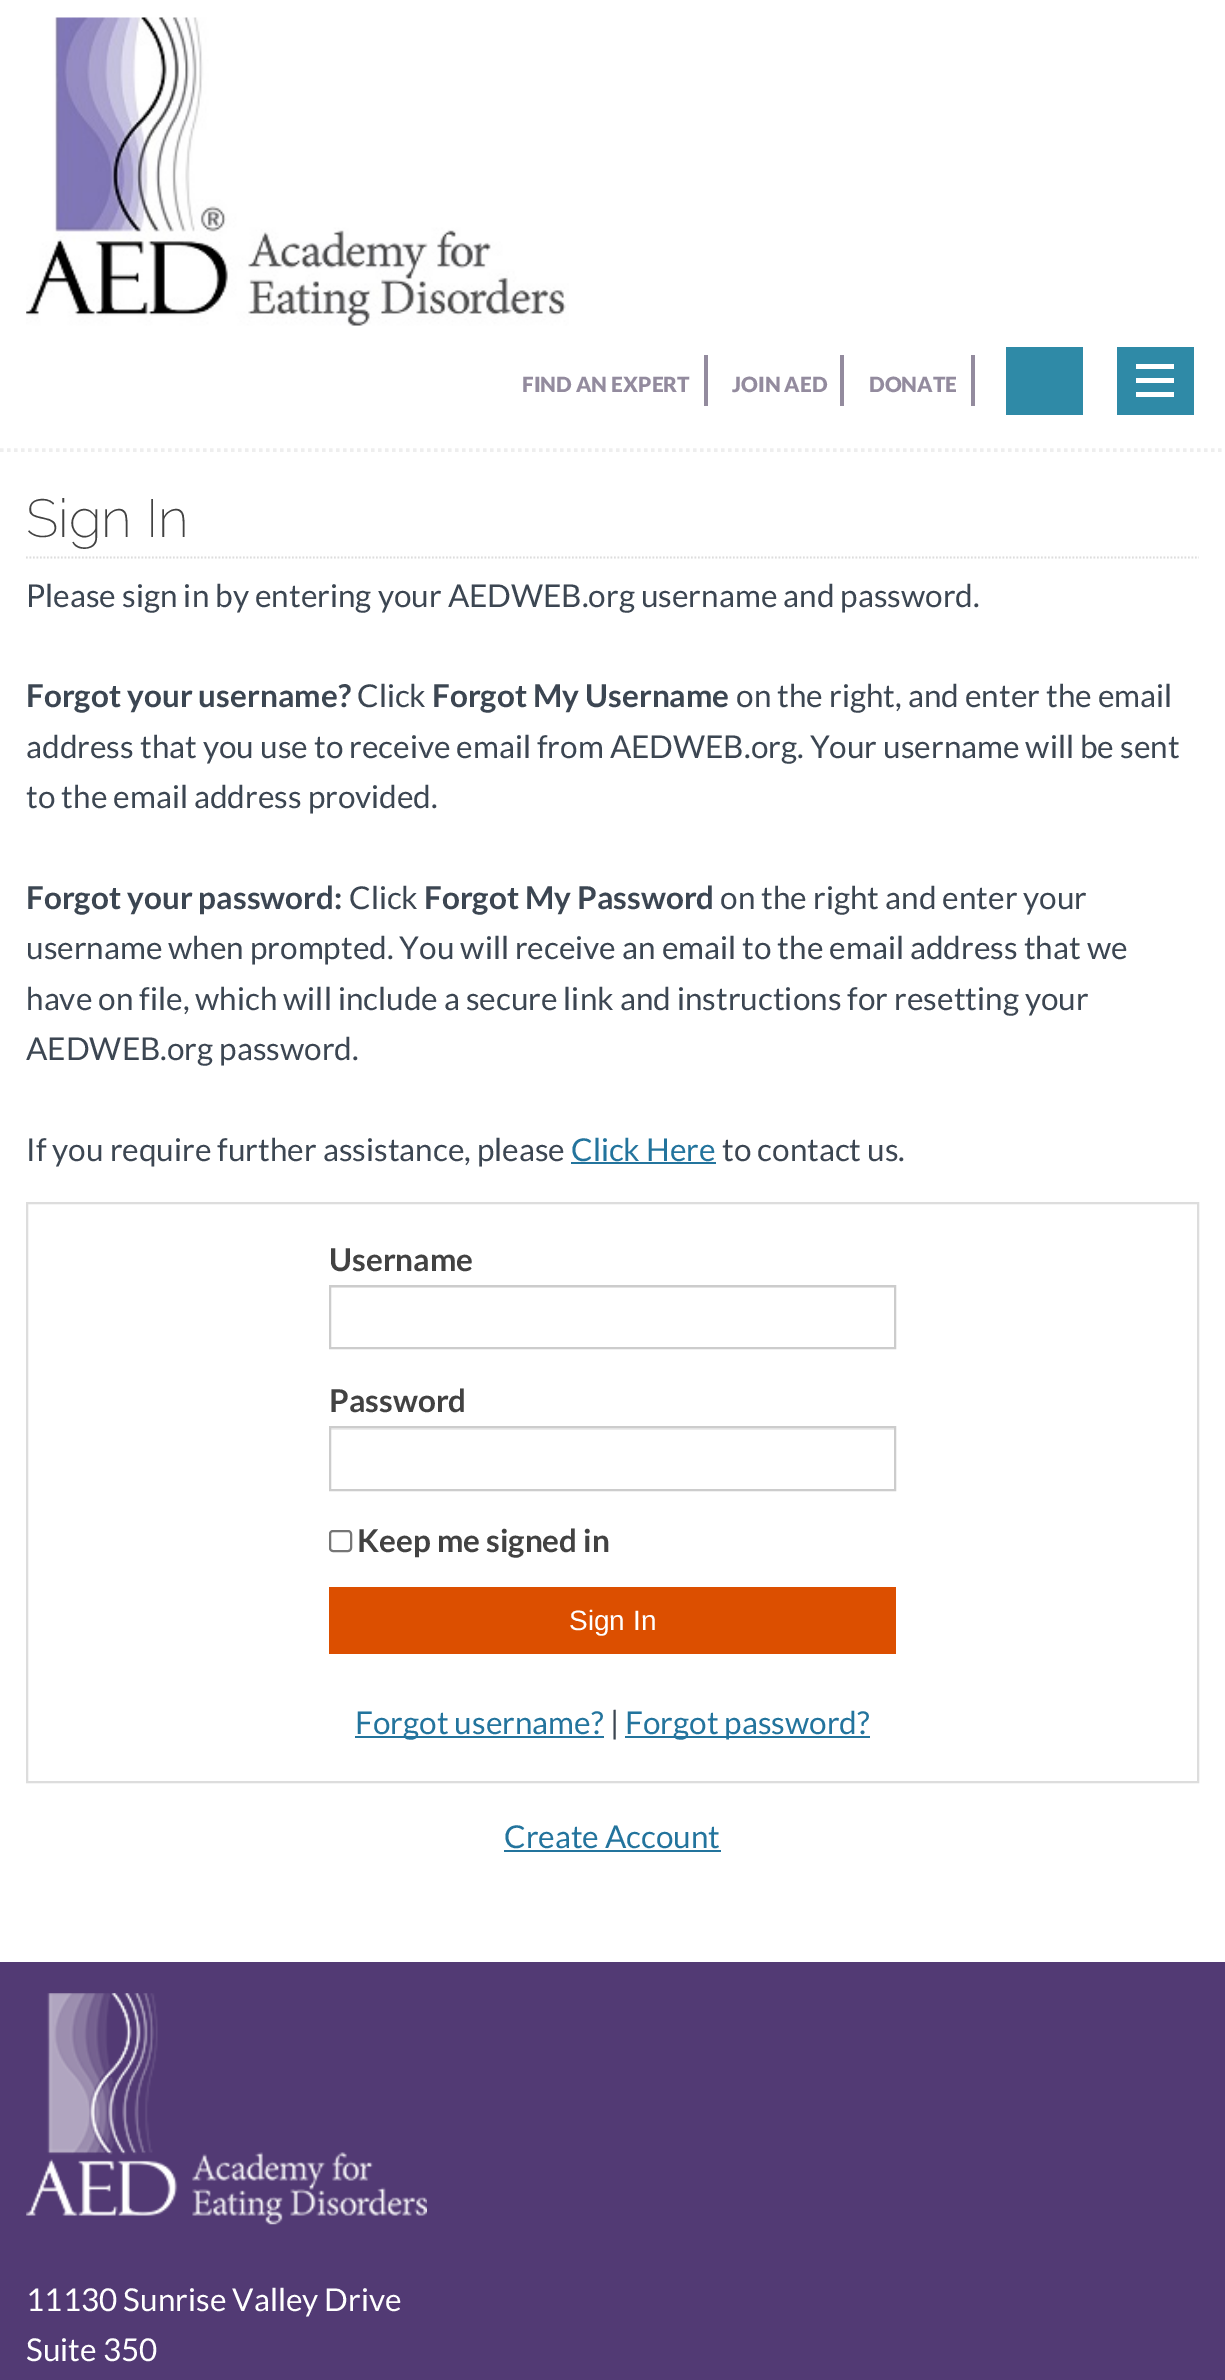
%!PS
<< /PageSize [1225 2380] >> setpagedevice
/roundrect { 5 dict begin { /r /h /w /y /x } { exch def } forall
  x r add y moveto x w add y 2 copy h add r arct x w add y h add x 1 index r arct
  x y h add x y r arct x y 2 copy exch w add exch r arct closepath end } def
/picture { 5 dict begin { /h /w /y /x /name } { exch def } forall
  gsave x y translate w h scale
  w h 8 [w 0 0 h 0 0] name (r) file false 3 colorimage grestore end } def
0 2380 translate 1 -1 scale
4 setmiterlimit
1 setgray
0 0 1225 2380 rectfill
0.933 setgray
3.5 setlinewidth
[3.5 3.5] 0 setdash
newpath 0 450 moveto 1225 450 lineto stroke
(img1.rgb) 26 17 543 309 picture
0.576 0.545 0.62 setrgbcolor
704 355 4 51 rectfill
/Lato-Black [21 0 0 -21 0 0] selectfont
522 392 moveto (FIND AN EXPERT) show
840 355 4 51 rectfill
732 392 moveto (JOIN AED) show
971 355 4 51 rectfill
869 392 moveto (DONATE) show
0.184 0.541 0.655 setrgbcolor
1006 347 77 68 rectfill
1117 347 77 68 rectfill
1 setgray
1136 364 38 5 rectfill
1136 378 38 5 rectfill
1136 392 38 5 rectfill
0.867 setgray
1.8 setlinewidth
[1.75 1.75] 0 setdash
newpath 26 557.5 moveto 1199 557.5 lineto stroke
/Raleway-Thin [53.5 0 0 -53.5 0 0] selectfont
0.259 setgray
26 537 moveto (Sign In) show
/Lato-Regular [31.5 0 0 -31.5 0 0] selectfont
0.235 0.275 0.322 setrgbcolor
26 607 moveto (Please sign in by entering your AEDWEB.org username and password.) show
/Lato-Bold [31.5 0 0 -31.5 0 0] selectfont
26 707 moveto (Forgot your username?) show
/Lato-Regular [31.5 0 0 -31.5 0 0] selectfont
357 707 moveto (Click) show
/Lato-Bold [31.5 0 0 -31.5 0 0] selectfont
432 707 moveto (Forgot My Username) show
/Lato-Regular [31.5 0 0 -31.5 0 0] selectfont
736 707 moveto (on the right, and enter the email) show
26 758 moveto (address that you use to receive email from AEDWEB.org. Your username will be sent) show
26 808 moveto (to the email address provided.) show
/Lato-Bold [31.5 0 0 -31.5 0 0] selectfont
26 909 moveto (Forgot your password:) show
/Lato-Regular [31.5 0 0 -31.5 0 0] selectfont
349 909 moveto (Click) show
/Lato-Bold [31.5 0 0 -31.5 0 0] selectfont
424 909 moveto (Forgot My Password) show
/Lato-Regular [31.5 0 0 -31.5 0 0] selectfont
720 909 moveto (on the right and enter your) show
26 959 moveto (username when prompted. You will receive an email to the email address that we) show
26 1010 moveto (have on file, which will include a secure link and instructions for resetting your) show
26 1060 moveto (AEDWEB.org password.) show
26 1161 moveto (If you require further assistance, please) show
0.137 0.455 0.616 setrgbcolor
571 1161 moveto (Click Here) show
571 1162 145 2 rectfill
0.235 0.275 0.322 setrgbcolor
722 1161 moveto (to contact us.) show
0.867 setgray
2 setlinewidth
[] 0 setdash
27 1203 1171 579 rectstroke
/Lato-Bold [31.5 0 0 -31.5 0 0] selectfont
0.259 setgray
329 1271 moveto (Username) show
0.925 setgray
331 1287 563 1 rectfill
0.8 setgray
330 1286 565 62 rectstroke
0.259 setgray
329 1412 moveto (Password) show
0.925 setgray
331 1428 563 2 rectfill
0.8 setgray
330 1427 565 63 rectstroke
0.463 setgray
330 1531 21 20 3 roundrect stroke
0.259 setgray
357 1552 moveto (Keep me signed in) show
0.863 0.31 0 setrgbcolor
329 1587 567 67 rectfill
/LiberationSans-Regular [28 0 0 -28 0 0] selectfont
1 setgray
569 1630 moveto (Sign In) show
0.137 0.455 0.616 setrgbcolor
355 1736 249 2 rectfill
/Lato-Regular [31.5 0 0 -31.5 0 0] selectfont
355 1734 moveto (Forgot username?) show
0.235 0.275 0.322 setrgbcolor
610 1734 moveto (|) show
0.137 0.455 0.616 setrgbcolor
625 1736 245 2 rectfill
625 1734 moveto (Forgot password?) show
504 1848 moveto (Create Account) show
504 1850 217 2 rectfill
0.322 0.227 0.455 setrgbcolor
0 1962 1225 418 rectfill
(img2.rgb) 26 1993 401 232 picture
1 setgray
26 2311 moveto (11130 Sunrise Valley Drive) show
26 2361 moveto (Suite 350) show
showpage
